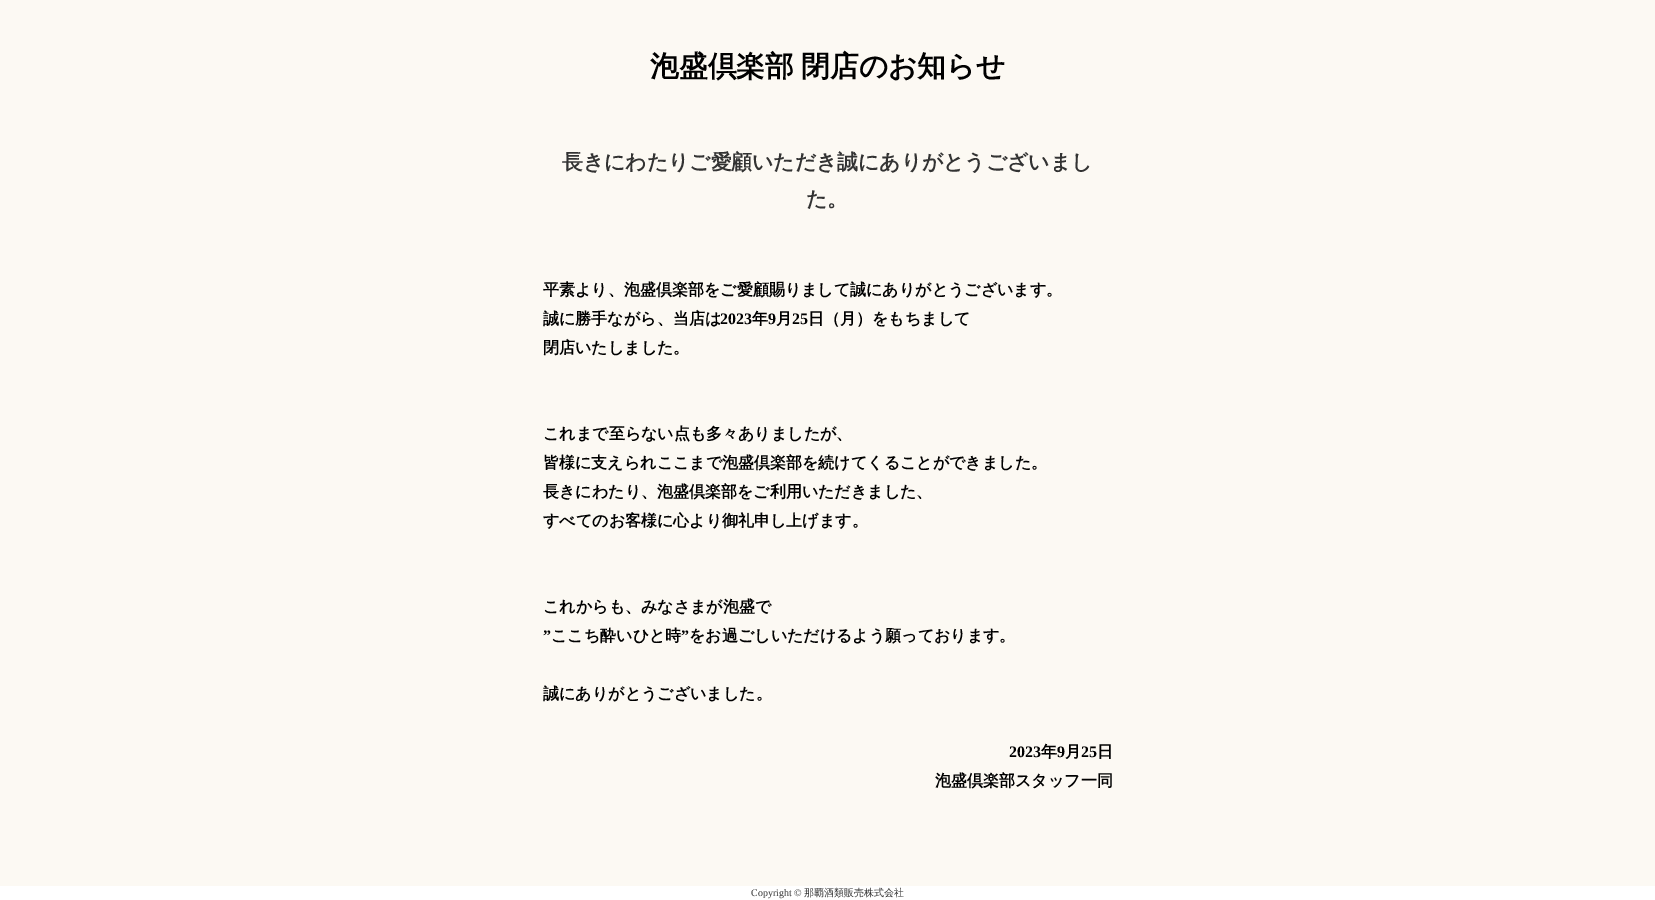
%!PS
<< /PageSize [1655 900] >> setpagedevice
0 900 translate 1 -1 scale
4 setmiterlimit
1 setgray
0 0 1655 900 rectfill
0.988 0.976 0.953 setrgbcolor
0 0 1655 886 rectfill
/WenQuanYiZenHei-Bold [28.75 0 0 -28.75 0 0] selectfont
0 setgray
650 76 moveto (泡盛倶楽部) show
801 76 moveto (閉店のお知らせ) show
/WenQuanYiZenHei-Bold [20.8 0 0 -20.8 0 0] selectfont
0.2 setgray
562 169 moveto (長きにわたりご愛顧いただき誠にありがとうございまし) show
806 206 moveto (た。) show
/WenQuanYiZenHei-Bold [16 0 0 -16 0 0] selectfont
0 setgray
543 295 moveto (平素より、泡盛倶楽部をご愛顧賜りまして誠にありがとうございます。) show
543 324 moveto (誠に勝手ながら、当店は) show
/LiberationSerif-Bold [16 0 0 -16 0 0] selectfont
720 324 moveto (2023) show
/WenQuanYiZenHei-Bold [16 0 0 -16 0 0] selectfont
752 324 moveto (年) show
/LiberationSerif-Bold [16 0 0 -16 0 0] selectfont
768 324 moveto (9) show
/WenQuanYiZenHei-Bold [16 0 0 -16 0 0] selectfont
776 324 moveto (月) show
/LiberationSerif-Bold [16 0 0 -16 0 0] selectfont
792 324 moveto (25) show
/WenQuanYiZenHei-Bold [16 0 0 -16 0 0] selectfont
808 324 moveto (日（月）をもちまして) show
543 353 moveto (閉店いたしました。) show
543 439 moveto (これまで至らない点も多々ありましたが、) show
543 468 moveto (皆様に支えられここまで泡盛倶楽部を続けてくることができました。) show
543 497 moveto (長きにわたり、泡盛倶楽部をご利用いただきました、) show
543 526 moveto (すべてのお客様に心より御礼申し上げます。) show
543 612 moveto (これからも、みなさまが泡盛で) show
/LiberationSerif-Bold [16 0 0 -16 0 0] selectfont
543 641 moveto (”) show
/WenQuanYiZenHei-Bold [16 0 0 -16 0 0] selectfont
551 641 moveto (ここち酔いひと時) show
/LiberationSerif-Bold [16 0 0 -16 0 0] selectfont
681 641 moveto (”) show
/WenQuanYiZenHei-Bold [16 0 0 -16 0 0] selectfont
689 641 moveto (をお過ごしいただけるよう願っております。) show
543 699 moveto (誠にありがとうございました。) show
/LiberationSerif-Bold [16 0 0 -16 0 0] selectfont
1009 757 moveto (2023) show
/WenQuanYiZenHei-Bold [16 0 0 -16 0 0] selectfont
1041 757 moveto (年) show
/LiberationSerif-Bold [16 0 0 -16 0 0] selectfont
1057 757 moveto (9) show
/WenQuanYiZenHei-Bold [16 0 0 -16 0 0] selectfont
1065 757 moveto (月) show
/LiberationSerif-Bold [16 0 0 -16 0 0] selectfont
1081 757 moveto (25) show
/WenQuanYiZenHei-Bold [16 0 0 -16 0 0] selectfont
1097 757 moveto (日) show
935 786 moveto (泡盛倶楽部スタッフ一同) show
/LiberationSerif-Regular [10 0 0 -10 0 0] selectfont
0.2 setgray
751 896 moveto (Copyright ©) show
/WenQuanYiZenHei-Medium [10 0 0 -10 0 0] selectfont
804 896 moveto (那覇酒類販売株式会社) show
showpage
